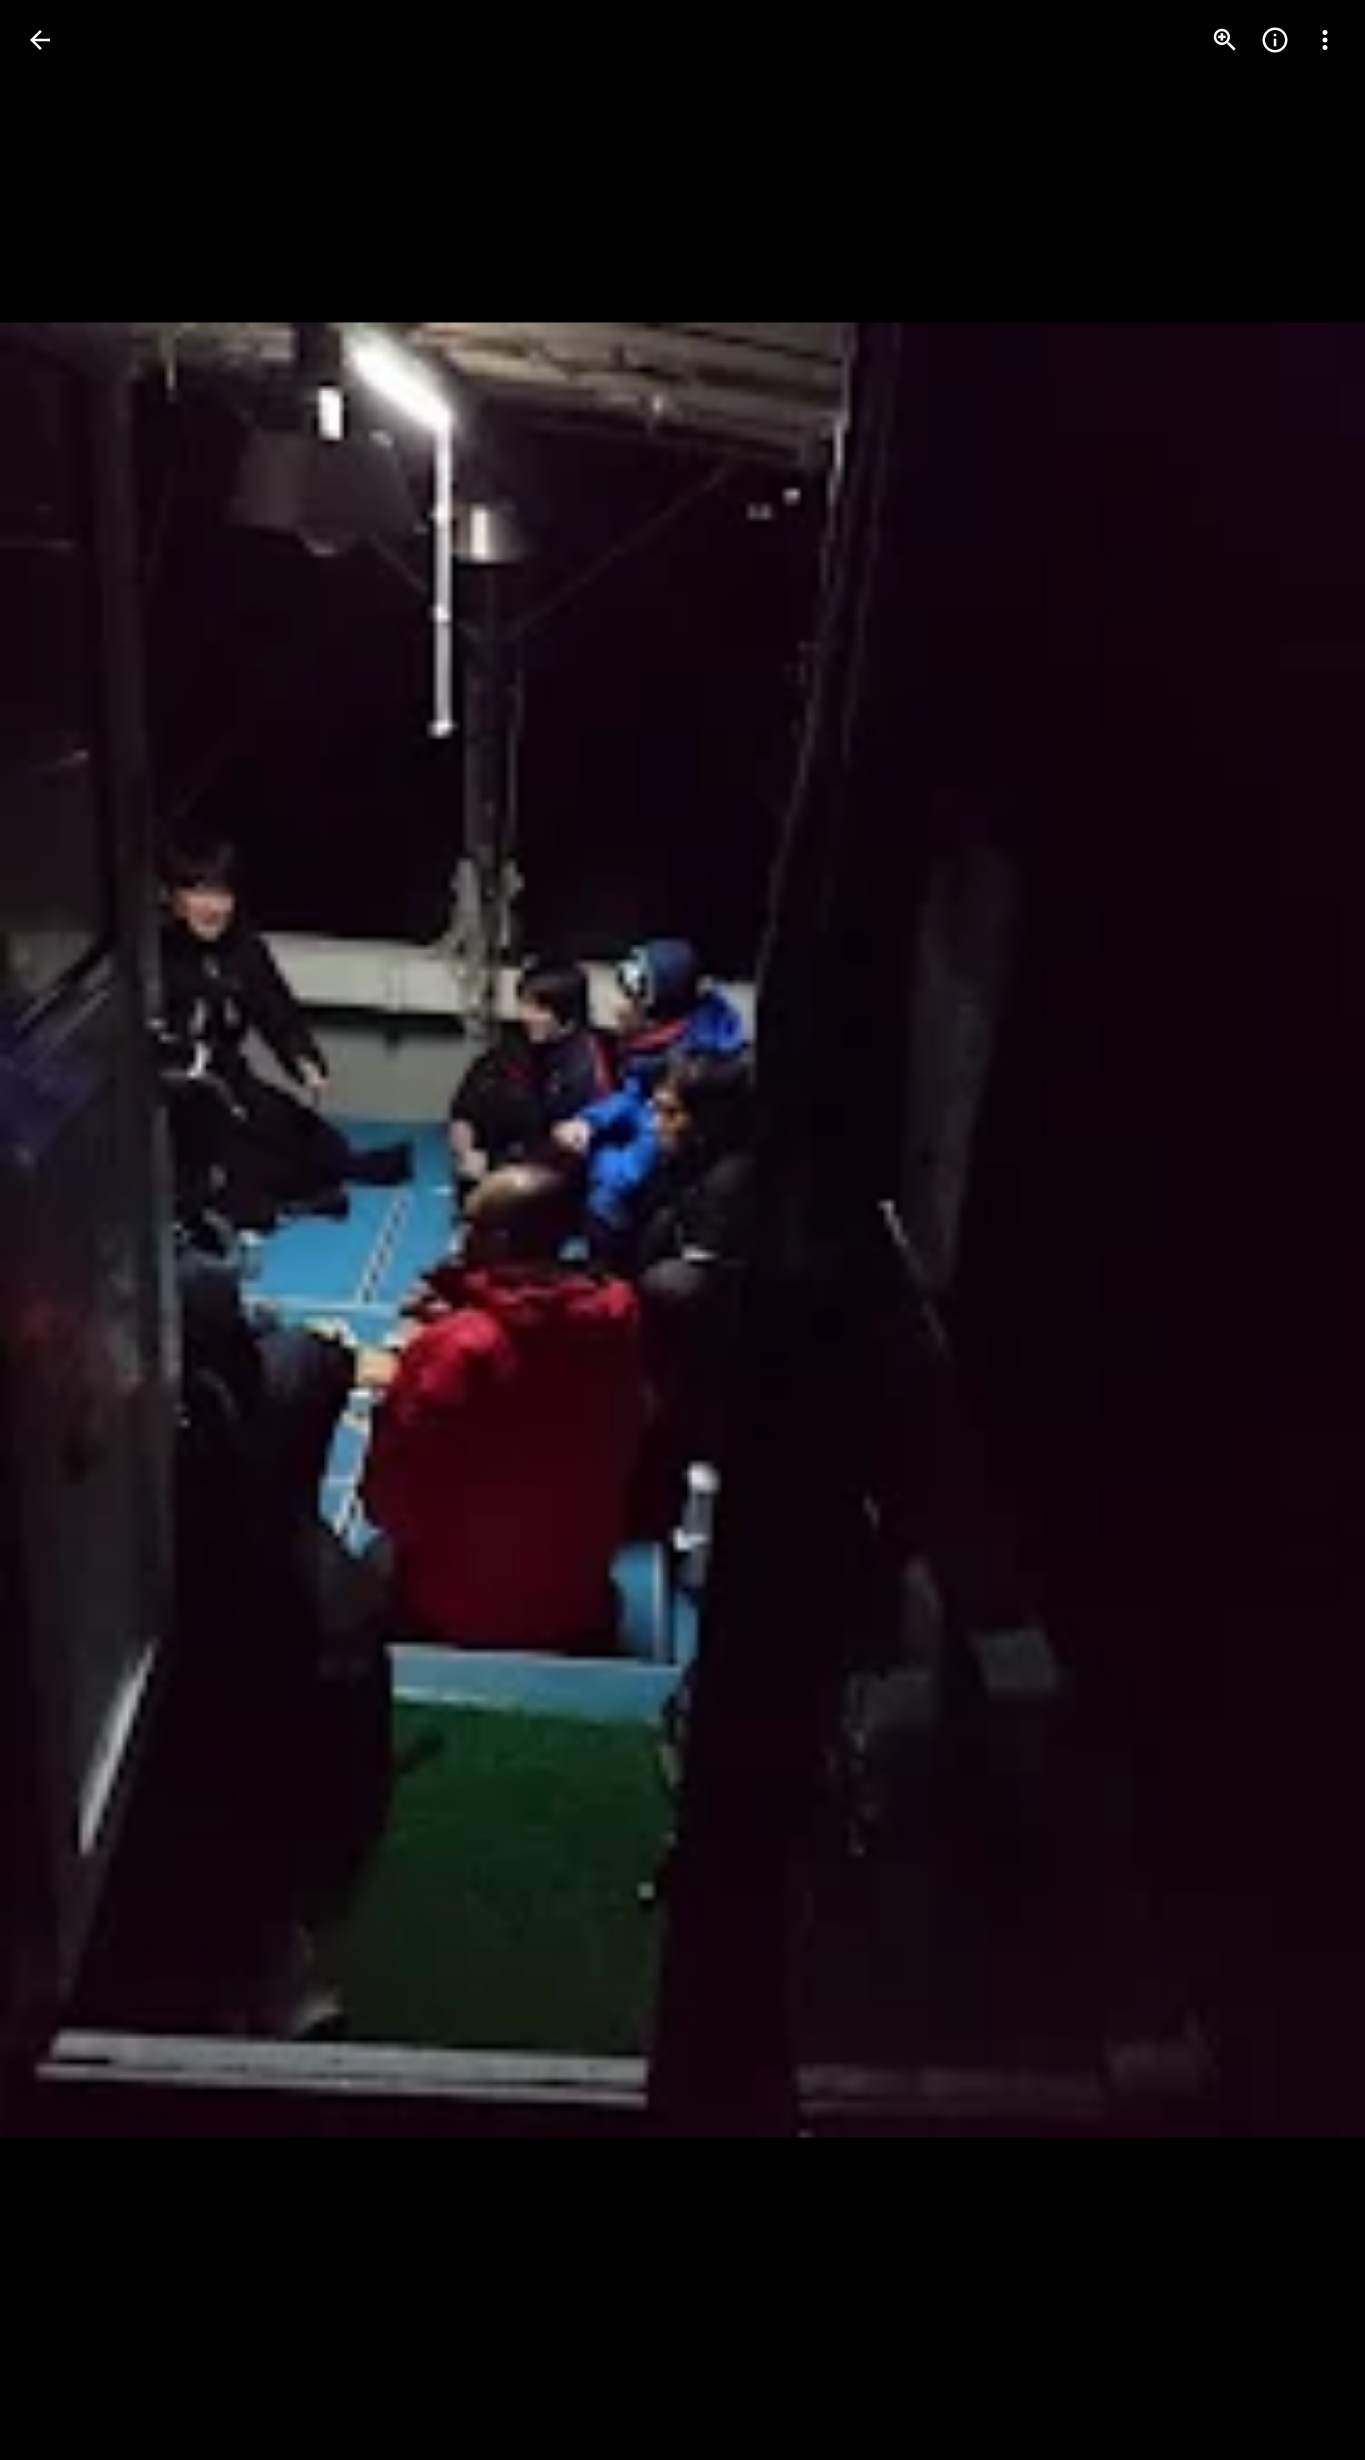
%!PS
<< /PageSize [1365 2460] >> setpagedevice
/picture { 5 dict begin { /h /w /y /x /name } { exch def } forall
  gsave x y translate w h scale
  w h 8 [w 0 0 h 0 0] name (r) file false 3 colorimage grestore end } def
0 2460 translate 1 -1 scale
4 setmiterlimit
0 setgray
0 0 1365 2460 rectfill
(img1.rgb) 30 30 20 20 picture
(img2.rgb) 1213 28 23 23 picture
(img3.rgb) 1262 27 26 26 picture
(img4.rgb) 1322 30 6 20 picture
(img5.rgb) 0 322 1365 1816 picture
showpage
